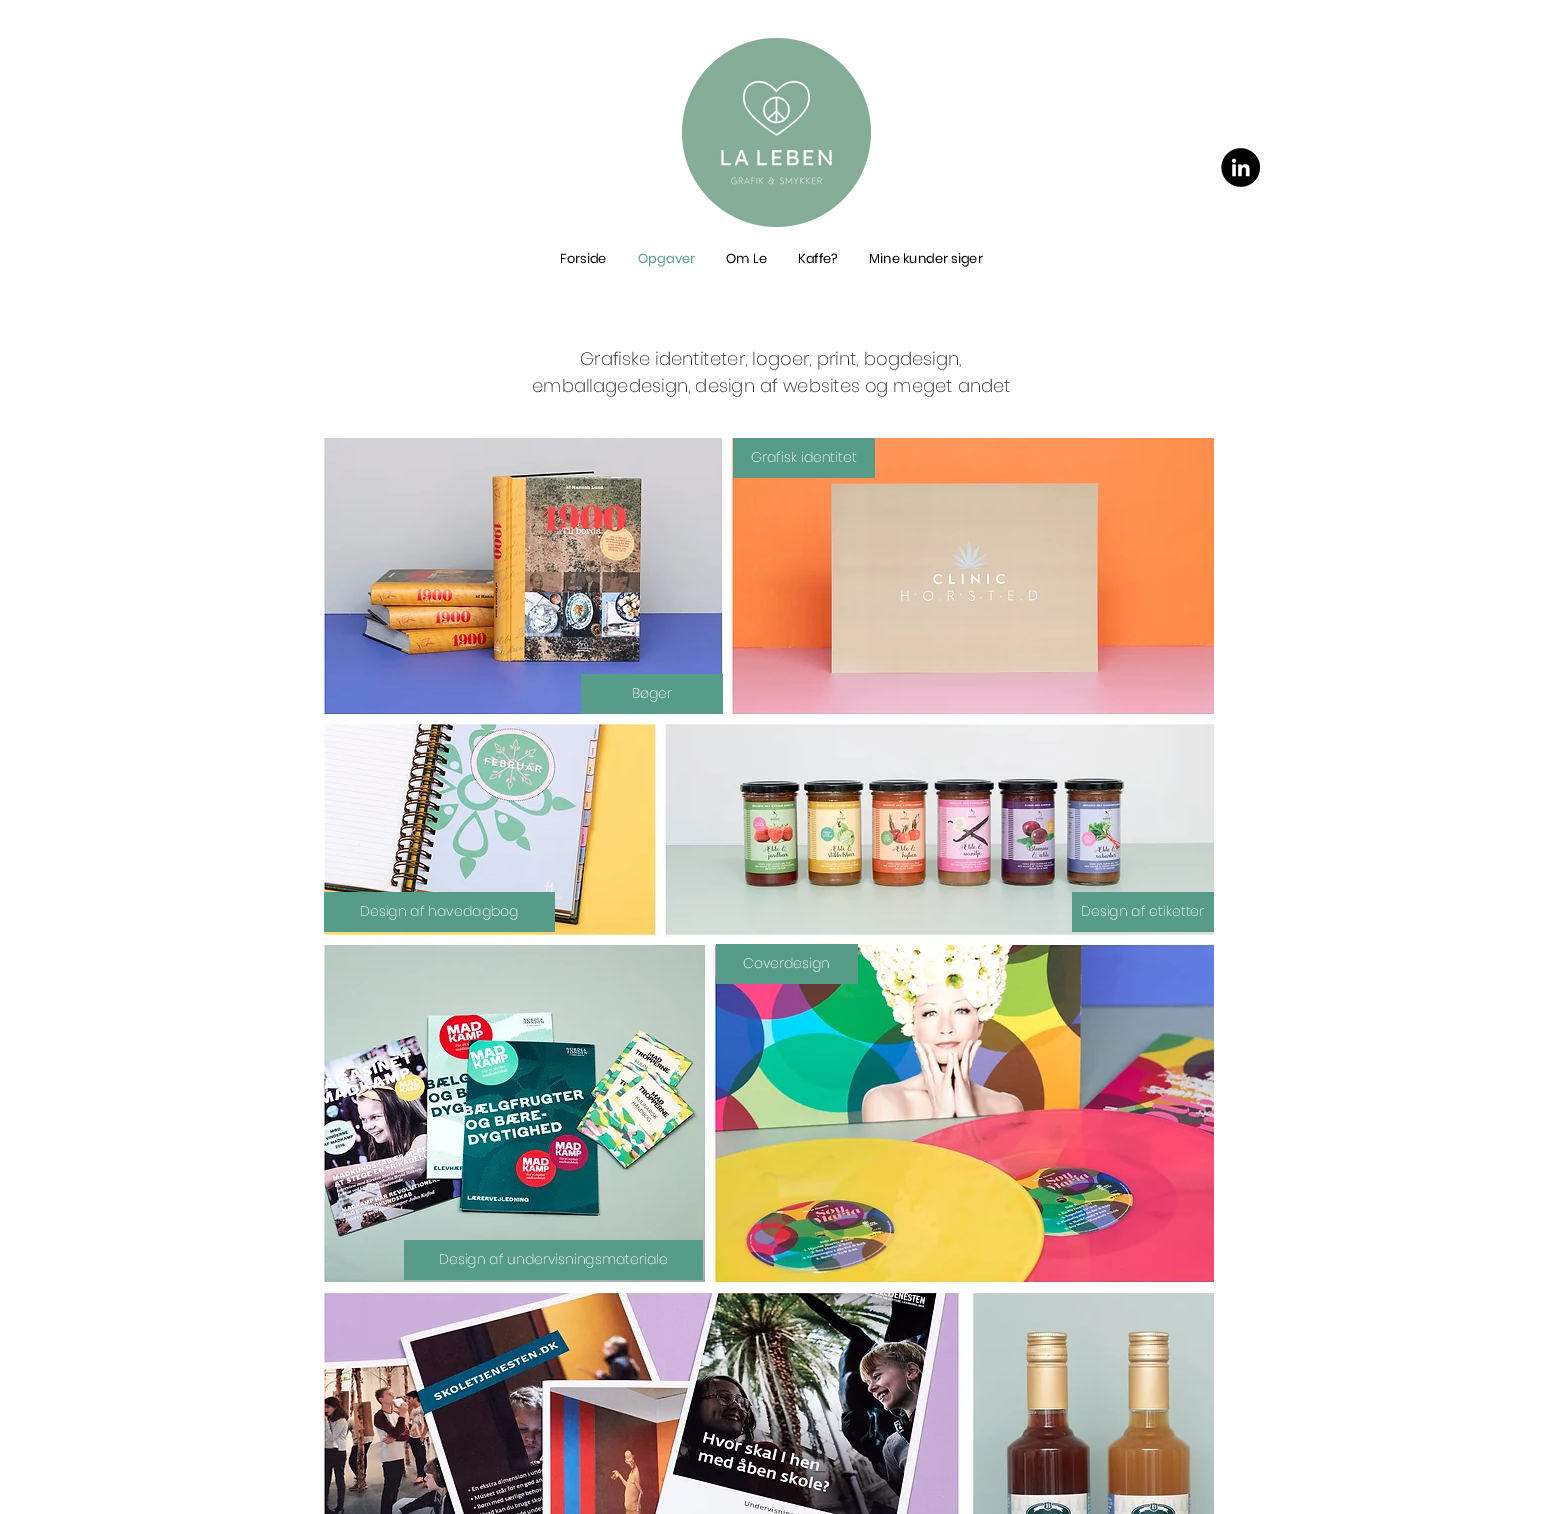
%!PS
<< /PageSize [1542 1514] >> setpagedevice
/picture { 5 dict begin { /h /w /y /x /name } { exch def } forall
  gsave x y translate w h scale
  w h 8 [w 0 0 h 0 0] name (r) file false 3 colorimage grestore end } def
0 1514 translate 1 -1 scale
4 setmiterlimit
1 setgray
0 0 1542 1514 rectfill
(img1.rgb) 682 38 189 189 picture
(img2.rgb) 1221 148 39 39 picture
/Poppins-Regular [13 0 0 -13 0 0] selectfont
0 setgray
560 263 moveto (Forside) show
0.341 0.612 0.537 setrgbcolor
638 263 moveto (Opgaver) show
0 setgray
726 263 moveto (Om Le) show
798 263 moveto (Kaffe?) show
869 263 moveto (Mine kunder siger) show
/Poppins-ExtraLight [18 0 0 -18 0 0] selectfont
0.165 setgray
580 365 moveto (Grafiske identiteter, logoer, print, bogdesign,) show
532 392 moveto (emballagedesign, design af websites og meget andet) show
(img3.rgb) 324 438 890 1076 picture
0.341 0.612 0.537 setrgbcolor
733 438 142 40 rectfill
/Poppins-ExtraLight [14 0 0 -14 0 0] selectfont
1 setgray
751 462 moveto (Grafisk identitet) show
0.341 0.612 0.537 setrgbcolor
581 674 142 40 rectfill
1 setgray
632 698 moveto (Bøger) show
0.341 0.612 0.537 setrgbcolor
324 892 231 40 rectfill
1 setgray
360 916 moveto (Design af havedagbog) show
0.341 0.612 0.537 setrgbcolor
1072 892 142 40 rectfill
1 setgray
1081 916 moveto (Design af etiketter) show
0.341 0.612 0.537 setrgbcolor
716 944 142 40 rectfill
1 setgray
743 968 moveto (Coverdesign) show
0.341 0.612 0.537 setrgbcolor
404 1240 299 40 rectfill
1 setgray
439 1264 moveto (Design af undervisningsmateriale) show
showpage
